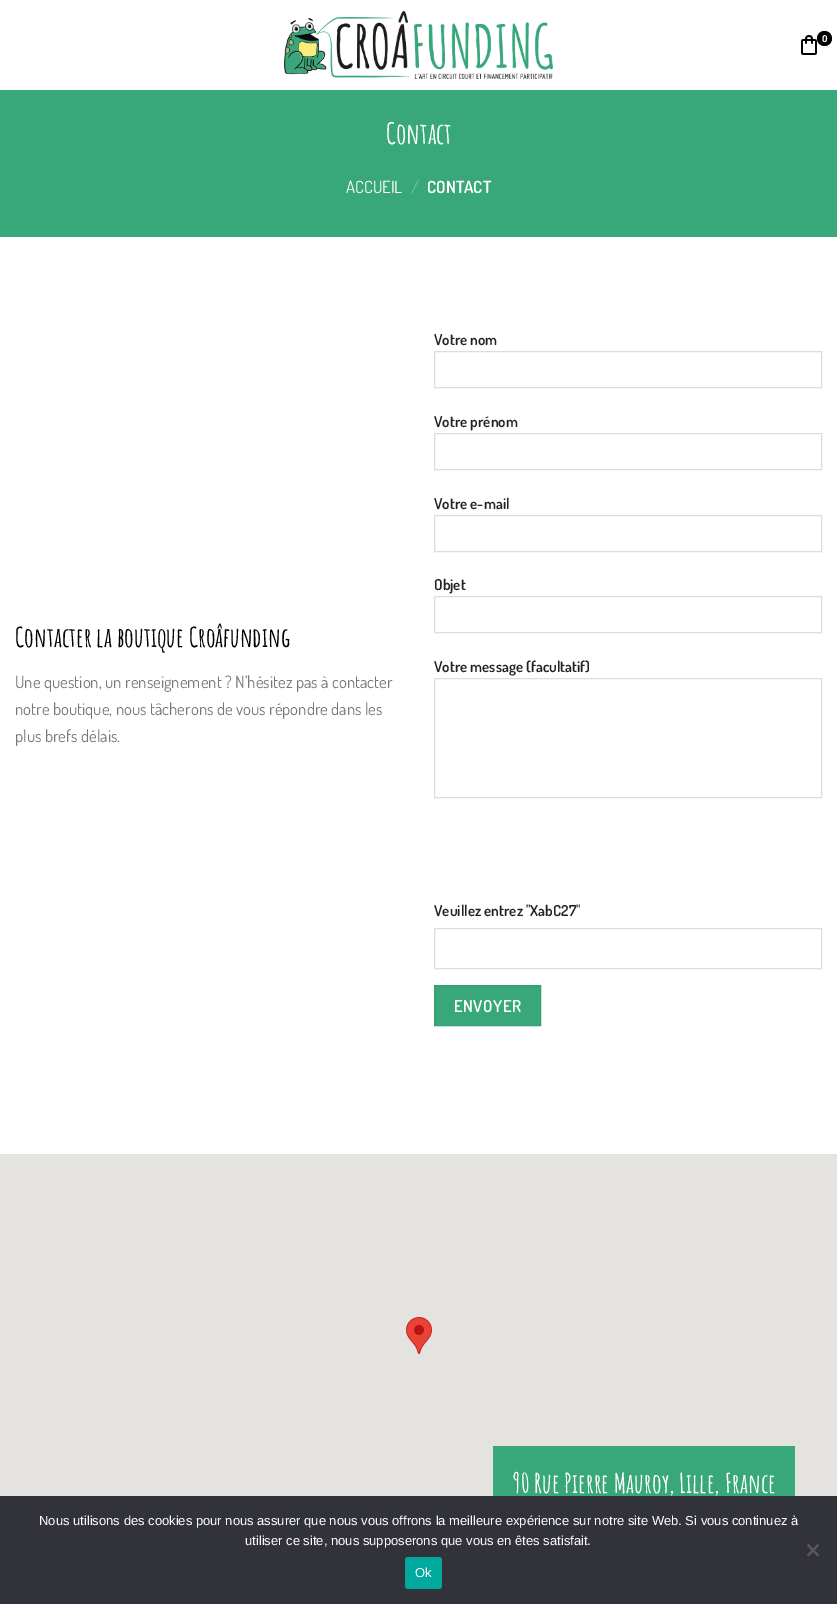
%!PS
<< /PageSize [837 1604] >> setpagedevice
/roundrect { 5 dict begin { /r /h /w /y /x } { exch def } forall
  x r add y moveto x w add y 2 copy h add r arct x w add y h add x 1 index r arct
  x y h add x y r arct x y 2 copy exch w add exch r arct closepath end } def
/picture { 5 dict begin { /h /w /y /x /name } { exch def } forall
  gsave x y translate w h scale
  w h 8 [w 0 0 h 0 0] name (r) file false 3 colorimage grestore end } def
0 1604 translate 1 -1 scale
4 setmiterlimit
1 setgray
0 0 837 1604 rectfill
(img1.rgb) 284 11 269 68 picture
(img2.rgb) 801 35 16 20 picture
0 setgray
newpath 824.5 38.5 7.5 0 360 arc closepath fill
/LiberationSans-Bold [10 0 0 -10 0 0] selectfont
1 setgray
822 42 moveto (0) show
0.22 0.655 0.478 setrgbcolor
0 90 837 147 rectfill
/AmaticSC-Bold [29 0 0 -29 0 0] selectfont
1 setgray
386 144 moveto (Contact) show
/Dosis-Regular [16.8 0 0 -16.8 0 0] selectfont
346 193 moveto (ACCUEIL) show
0.494 0.776 0.663 setrgbcolor
411 193 moveto (/) show
/Dosis-SemiBold [16.8 0 0 -16.8 0 0] selectfont
1 setgray
427 193 moveto (CONTACT) show
/AmaticSC-Bold [26.9 0 0 -26.9 0 0] selectfont
0 setgray
15 647 moveto (Contacter la boutique Croâfunding) show
/Dosis-Regular [16.8 0 0 -16.8 0 0] selectfont
0.467 setgray
15 688 moveto (Une question, un renseignement ? N’hésitez pas à contacter) show
15 715 moveto (notre boutique, nous tâcherons de vous répondre dans les) show
15 742 moveto (plus brefs délais.) show
/Dosis-SemiBold [15.1 0 0 -15.1 0 0] selectfont
0.133 setgray
434 345 moveto (Votre nom) show
0.867 setgray
434.5 351.5 387 36 rectstroke
0.133 setgray
434 427 moveto (Votre prénom) show
0.867 setgray
434.5 433.5 387 36 rectstroke
0.133 setgray
434 509 moveto (Votre e-mail) show
0.867 setgray
434.5 515.5 387 36 rectstroke
0.133 setgray
434 590 moveto (Objet) show
0.867 setgray
434.5 596.5 387 36 rectstroke
0.133 setgray
434 672 moveto (Votre message \(facultatif\)) show
0.867 setgray
434.5 678.5 387 119 rectstroke
0.133 setgray
434 916 moveto (Veuillez entrez "XabC27") show
0.867 setgray
434.5 928.5 387 40 rectstroke
0.22 0.655 0.478 setrgbcolor
newpath 434.5 985.5 moveto 540.5 985.5 lineto 540.5 1025.5 lineto 434.5 1025.5 lineto closepath gsave fill grestore
0.208 0.624 0.455 setrgbcolor
stroke
/Dosis-SemiBold [16.5 0 0 -16.5 0 0] selectfont
1 setgray
454 1012 moveto 0.5 0 (ENVOYER) ashow
0.898 0.89 0.875 setrgbcolor
0 1154 837 342 rectfill
(img3.rgb) 406 1317 26 37 picture
0.22 0.655 0.478 setrgbcolor
493 1446 302 50 rectfill
/AmaticSC-Bold [26.9 0 0 -26.9 0 0] selectfont
1 setgray
513 1493 moveto (90 Rue Pierre Mauroy, Lille, France) show
0.196 0.196 0.227 setrgbcolor
0 1496 837 108 rectfill
/LiberationSans-Regular [13 0 0 -13 0 0] selectfont
1 setgray
39 1525 moveto (Nous utilisons des cookies pour nous assurer que nous vous offrons la meilleure expérience sur notre site Web. Si vous continuez à) show
245 1545 moveto (utiliser ce site, nous supposerons que vous en êtes satisfait.) show
0.349 0.349 0.365 setrgbcolor
newpath 817.5 1544 moveto 819 1545.5 lineto 808.5 1556.5 lineto 807 1555 lineto closepath fill
newpath 807 1545.5 moveto 808.5 1544 lineto 819 1555 lineto 817.5 1556.5 lineto closepath fill
0 0.663 0.616 setrgbcolor
405 1557 37 32 3 roundrect fill
1 setgray
415 1577 moveto (Ok) show
showpage
